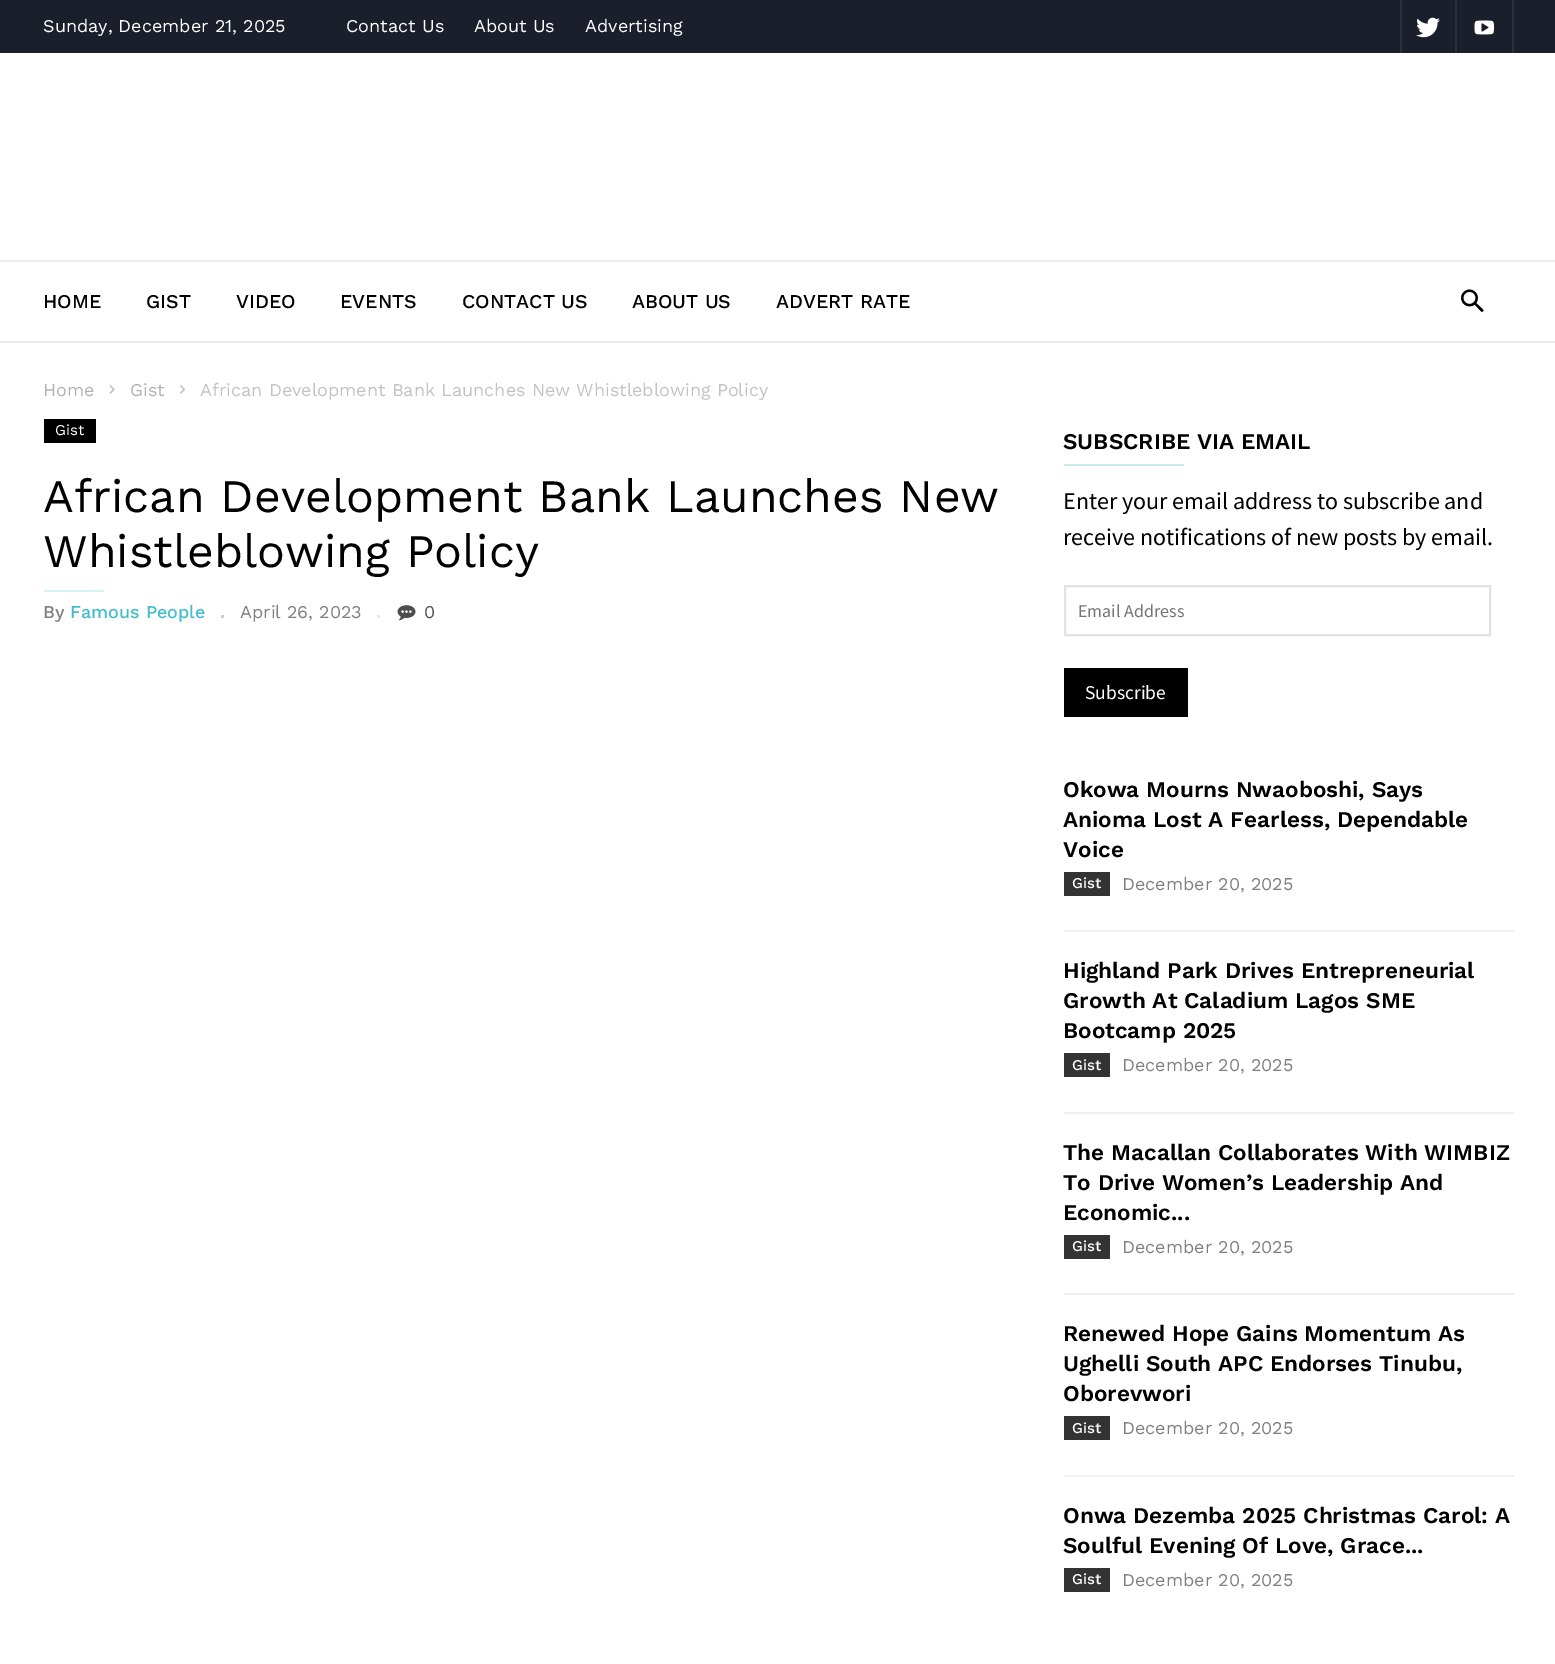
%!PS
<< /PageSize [1555 1664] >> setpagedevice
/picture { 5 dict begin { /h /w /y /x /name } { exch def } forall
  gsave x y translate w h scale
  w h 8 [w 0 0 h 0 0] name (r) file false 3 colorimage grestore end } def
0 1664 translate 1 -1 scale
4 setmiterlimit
1 setgray
0 0 1555 1664 rectfill
0.102 0.122 0.169 setrgbcolor
0 0 1555 53 rectfill
/WorkSans-Regular [18 0 0 -18 0 0] selectfont
1 setgray
43 32 moveto (Sunday, December 21, 2025) show
346 32 moveto (Contact Us) show
474 32 moveto (About Us) show
585 32 moveto (Advertising) show
0.165 0.184 0.227 setrgbcolor
1400 0 2 53 rectfill
(img1.rgb) 1416 17 24 21 picture
1455 0 2 53 rectfill
(img2.rgb) 1474 20 20 15 picture
1512 0 2 53 rectfill
0.922 setgray
0 260 1555 2 rectfill
/WorkSans-Medium [19.5 0 0 -19.5 0 0] selectfont
0 setgray
43 308 moveto (HOME) show
146 308 moveto (GIST) show
236 308 moveto (VIDEO) show
340 308 moveto (EVENTS) show
462 308 moveto (CONTACT US) show
632 308 moveto (ABOUT US) show
776 308 moveto (ADVERT RATE) show
(img3.rgb) 1461 289 23 23 picture
0.922 setgray
0 341 1555 2 rectfill
/WorkSans-Regular [18 0 0 -18 0 0] selectfont
0.698 setgray
43 396 moveto (Home) show
(img4.rgb) 109 385 6 9 picture
130 396 moveto (Gist) show
(img5.rgb) 180 385 5 9 picture
0.765 setgray
200 396 moveto (African Development Bank Launches New Whistleblowing Policy) show
0 setgray
44 419 52 24 rectfill
/WorkSans-Regular [15 0 0 -15 0 0] selectfont
1 setgray
55 435 moveto (Gist) show
/WorkSans-Regular [46.5 0 0 -46.5 0 0] selectfont
0 setgray
43 512 moveto (African Development Bank Launches New) show
43 567 moveto (Whistleblowing Policy) show
0.851 0.949 0.961 setrgbcolor
44 590 60 2 rectfill
/WorkSans-Medium [18 0 0 -18 0 0] selectfont
0.502 setgray
43 618 moveto (By) show
0.259 0.741 0.804 setrgbcolor
70 618 moveto (Famous People) show
0.8 setgray
221 615 3 3 rectfill
/WorkSans-Regular [18 0 0 -18 0 0] selectfont
0.502 setgray
240 618 moveto (April 26, 2023) show
0.902 setgray
377 615 3 3 rectfill
(img6.rgb) 397 605 19 16 picture
0.302 setgray
424 618 moveto (0) show
/WorkSans-SemiBold [22.5 0 0 -22.5 0 0] selectfont
0 setgray
1063 449 moveto (SUBSCRIBE VIA EMAIL) show
0.776 0.922 0.941 setrgbcolor
1064 464 120 2 rectfill
/SourceSansPro-Regular [24 0 0 -24 0 0] selectfont
0 setgray
1063 509 moveto (Enter your email address to subscribe and) show
1063 545 moveto (receive notifications of new posts by email.) show
0.882 setgray
2 setlinewidth
1065 586 425 49 rectstroke
/SourceSansPro-Regular [18 0 0 -18 0 0] selectfont
0.459 setgray
1078 617 moveto (Email Address) show
0 setgray
1064 668 124 49 rectfill
/SourceSansPro-Regular [19.5 0 0 -19.5 0 0] selectfont
1 setgray
1085 699 moveto (Subscribe) show
/WorkSans-SemiBold [22.5 0 0 -22.5 0 0] selectfont
0 setgray
1063 797 moveto (Okowa Mourns Nwaoboshi, Says) show
1063 827 moveto (Anioma Lost A Fearless, Dependable) show
1063 857 moveto (Voice) show
0.2 setgray
1064 872 46 24 rectfill
/WorkSans-Medium [15 0 0 -15 0 0] selectfont
1 setgray
1072 888 moveto (Gist) show
/WorkSans-Regular [18 0 0 -18 0 0] selectfont
0.502 setgray
1122 890 moveto (December 20, 2025) show
0.941 setgray
1064 930 450 2 rectfill
/WorkSans-SemiBold [22.5 0 0 -22.5 0 0] selectfont
0 setgray
1063 978 moveto (Highland Park Drives Entrepreneurial) show
1063 1008 moveto (Growth At Caladium Lagos SME) show
1063 1038 moveto (Bootcamp 2025) show
0.2 setgray
1064 1053 46 24 rectfill
/WorkSans-Medium [15 0 0 -15 0 0] selectfont
1 setgray
1072 1070 moveto (Gist) show
/WorkSans-Regular [18 0 0 -18 0 0] selectfont
0.502 setgray
1122 1071 moveto (December 20, 2025) show
0.941 setgray
1064 1112 450 2 rectfill
/WorkSans-SemiBold [22.5 0 0 -22.5 0 0] selectfont
0 setgray
1063 1160 moveto (The Macallan Collaborates With WIMBIZ) show
1063 1190 moveto (To Drive Women’s Leadership And) show
1063 1220 moveto (Economic...) show
0.2 setgray
1064 1235 46 24 rectfill
/WorkSans-Medium [15 0 0 -15 0 0] selectfont
1 setgray
1072 1251 moveto (Gist) show
/WorkSans-Regular [18 0 0 -18 0 0] selectfont
0.502 setgray
1122 1253 moveto (December 20, 2025) show
0.941 setgray
1064 1293 450 2 rectfill
/WorkSans-SemiBold [22.5 0 0 -22.5 0 0] selectfont
0 setgray
1063 1341 moveto (Renewed Hope Gains Momentum As) show
1063 1371 moveto (Ughelli South APC Endorses Tinubu,) show
1063 1401 moveto (Oborevwori) show
0.2 setgray
1064 1416 46 24 rectfill
/WorkSans-Medium [15 0 0 -15 0 0] selectfont
1 setgray
1072 1433 moveto (Gist) show
/WorkSans-Regular [18 0 0 -18 0 0] selectfont
0.502 setgray
1122 1434 moveto (December 20, 2025) show
0.941 setgray
1064 1475 450 2 rectfill
/WorkSans-SemiBold [22.5 0 0 -22.5 0 0] selectfont
0 setgray
1063 1523 moveto (Onwa Dezemba 2025 Christmas Carol: A) show
1063 1553 moveto (Soulful Evening Of Love, Grace...) show
0.2 setgray
1064 1568 46 24 rectfill
/WorkSans-Medium [15 0 0 -15 0 0] selectfont
1 setgray
1072 1584 moveto (Gist) show
/WorkSans-Regular [18 0 0 -18 0 0] selectfont
0.502 setgray
1122 1586 moveto (December 20, 2025) show
showpage
